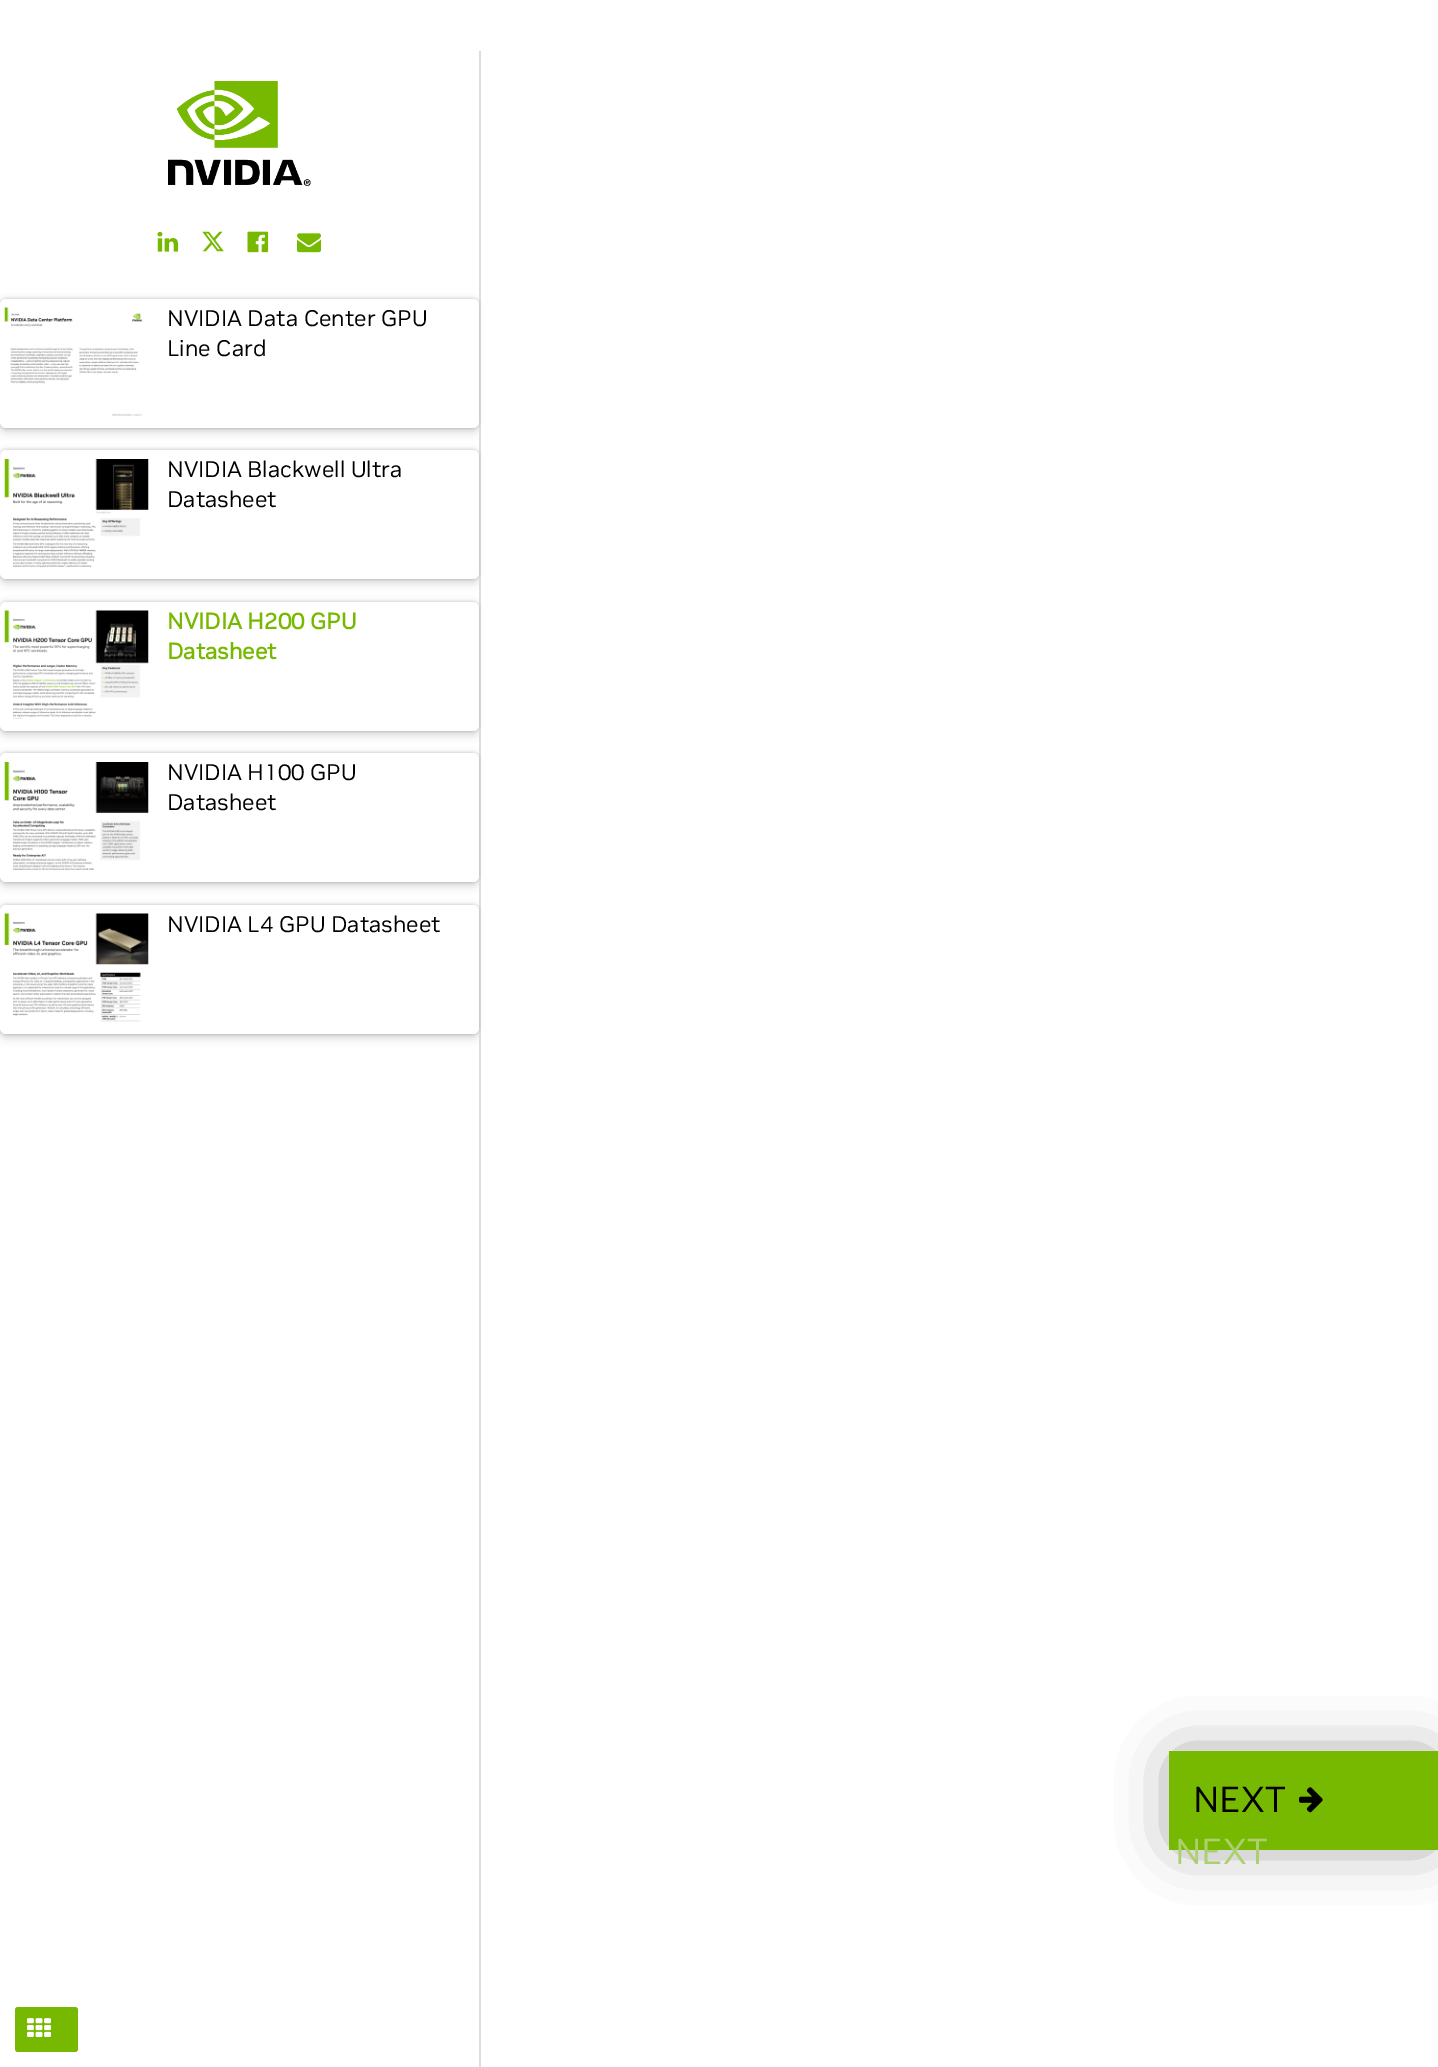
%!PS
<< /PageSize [1438 2067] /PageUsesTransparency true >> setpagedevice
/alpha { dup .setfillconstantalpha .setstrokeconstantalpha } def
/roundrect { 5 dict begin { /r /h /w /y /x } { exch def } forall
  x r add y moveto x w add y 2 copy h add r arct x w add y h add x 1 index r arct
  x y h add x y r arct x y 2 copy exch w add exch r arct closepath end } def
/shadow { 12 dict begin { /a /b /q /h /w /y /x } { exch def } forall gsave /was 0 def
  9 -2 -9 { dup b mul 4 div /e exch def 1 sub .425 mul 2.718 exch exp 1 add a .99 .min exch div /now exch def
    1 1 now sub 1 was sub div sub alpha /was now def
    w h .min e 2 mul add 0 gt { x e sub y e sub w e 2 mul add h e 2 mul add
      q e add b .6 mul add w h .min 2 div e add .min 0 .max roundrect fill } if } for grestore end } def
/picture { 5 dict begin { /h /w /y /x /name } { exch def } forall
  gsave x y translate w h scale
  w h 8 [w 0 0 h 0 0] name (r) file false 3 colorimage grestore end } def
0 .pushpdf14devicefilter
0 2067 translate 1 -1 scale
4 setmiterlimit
1 setgray
0 0 1438 2067 rectfill
0.867 setgray
479 51 2 2016 rectfill
(img1.rgb) 168 81 143 105 picture
(img2.rgb) 157 231 22 21 picture
(img3.rgb) 202 231 22 21 picture
(img4.rgb) 247 231 22 22 picture
(img5.rgb) 297 233 24 20 picture
gsave
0 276 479 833 rectclip
0 setgray
0 302 479 129 6 4.5 0.19 shadow
grestore
0 setgray
0 299 479 129 6 1.5 0.19 shadow
1 setgray
0 299 479 129 6 roundrect fill
(img6.rgb) 4 307 139 109 picture
/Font-Regular [22.5 0 0 -22.5 0 0] selectfont
0 setgray
167 326 moveto (NVIDIA Data Center GPU) show
167 356 moveto (Line Card) show
gsave
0 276 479 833 rectclip
0 453 479 129 6 4.5 0.19 shadow
grestore
0 450 479 129 6 1.5 0.19 shadow
1 setgray
0 450 479 129 6 roundrect fill
(img7.rgb) 4 459 145 108 picture
0 setgray
167 477 moveto (NVIDIA Blackwell Ultra) show
167 507 moveto (Datasheet) show
gsave
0 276 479 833 rectclip
0 605 479 129 6 4.5 0.19 shadow
grestore
0 602 479 129 6 1.5 0.19 shadow
1 setgray
0 602 479 129 6 roundrect fill
(img8.rgb) 4 610 145 109 picture
/Font-Bold [22.5 0 0 -22.5 0 0] selectfont
0.463 0.725 0 setrgbcolor
167 629 moveto (NVIDIA H200 GPU) show
167 659 moveto (Datasheet) show
gsave
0 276 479 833 rectclip
0 setgray
0 756 479 129 6 4.5 0.19 shadow
grestore
0 setgray
0 753 479 129 6 1.5 0.19 shadow
1 setgray
0 753 479 129 6 roundrect fill
(img9.rgb) 4 762 145 108 picture
/Font-Regular [22.5 0 0 -22.5 0 0] selectfont
0 setgray
167 780 moveto (NVIDIA H100 GPU) show
167 810 moveto (Datasheet) show
gsave
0 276 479 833 rectclip
0 908 479 129 6 4.5 0.19 shadow
grestore
0 905 479 129 6 1.5 0.19 shadow
1 setgray
0 905 479 129 6 roundrect fill
(img10.rgb) 4 913 145 109 picture
0 setgray
167 932 moveto (NVIDIA L4 GPU Datasheet) show
0.463 0.725 0 setrgbcolor
15 2007 63 45 3 roundrect fill
(img11.rgb) 27 2018 24 19 picture
0 setgray
1181 1763 246 75 0 30 0.5 shadow
0.463 0.725 0 setrgbcolor
1169 1751 269 99 rectfill
/Font-Regular [36 0 0 -36 0 0] selectfont
0 setgray
1193 1812 moveto (NEXT) show
(img12.rgb) 1299 1787 24 26 picture
0.678 0.812 0.447 setrgbcolor
1175 1864 moveto (NEXT) show
.poppdf14devicefilter showpage
